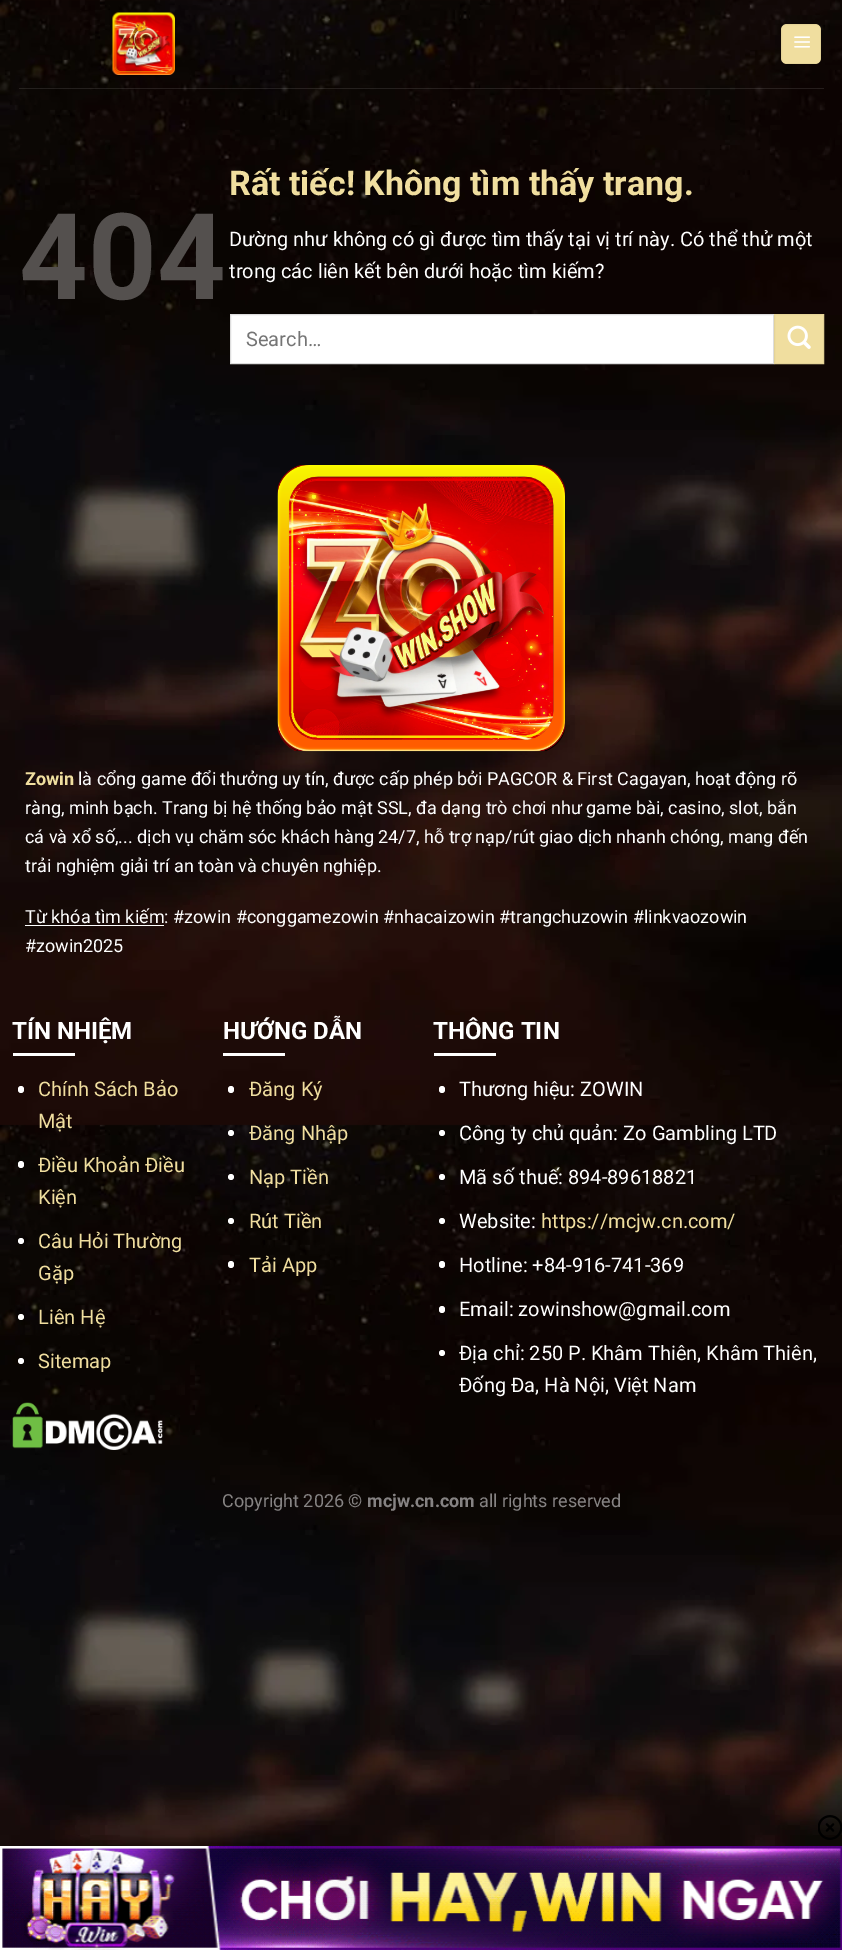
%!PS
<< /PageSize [842 1950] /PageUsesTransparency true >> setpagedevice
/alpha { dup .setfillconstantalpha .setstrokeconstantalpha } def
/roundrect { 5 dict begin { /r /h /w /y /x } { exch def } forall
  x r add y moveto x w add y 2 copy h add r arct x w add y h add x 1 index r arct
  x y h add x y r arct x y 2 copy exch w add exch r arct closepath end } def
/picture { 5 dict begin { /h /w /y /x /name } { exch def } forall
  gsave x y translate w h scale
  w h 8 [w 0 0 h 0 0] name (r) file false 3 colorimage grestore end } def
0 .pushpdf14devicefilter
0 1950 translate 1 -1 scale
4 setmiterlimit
1 setgray
0 0 842 1950 rectfill
(img1.rgb) 0 0 842 1950 picture
(img2.rgb) 112 12 63 63 picture
0.941 0.871 0.624 setrgbcolor
781 24 40 40 6 roundrect fill
0.05 alpha
0 setgray
781.5 24.5 39 39 rectstroke
1 alpha
(img3.rgb) 794 36 16 12 picture
0.1 alpha
1 setgray
19 88 805 1 rectfill
/Roboto-Bold [120 0 0 -120 0 0] selectfont
1 alpha
0.329 0.314 0.306 setrgbcolor
19 299 moveto (404) show
/Roboto-Bold [34 0 0 -34 0 0] selectfont
0.941 0.871 0.624 setrgbcolor
229 195 moveto (Rất tiếc! Không tìm thấy trang.) show
/Roboto-Regular [20 0 0 -20 0 0] selectfont
1 setgray
229 246 moveto (Dường như không có gì được tìm thấy tại vị trí này. Có thể thử một) show
229 278 moveto (trong các liên kết bên dưới hoặc tìm kiếm?) show
newpath 230.5 314.5 moveto 773.5 314.5 lineto 773.5 363.5 lineto 230.5 363.5 lineto closepath gsave fill grestore
0.867 setgray
stroke
0.459 setgray
246 346 moveto (Search…) show
0.941 0.871 0.624 setrgbcolor
newpath 774.5 314.5 moveto 823.5 314.5 lineto 823.5 363.5 lineto 774.5 363.5 lineto closepath gsave fill grestore
0.894 0.827 0.592 setrgbcolor
stroke
(img4.rgb) 787 325 24 24 picture
(img5.rgb) 277 465 288 287 picture
/Roboto-Bold [18 0 0 -18 0 0] selectfont
0.941 0.871 0.624 setrgbcolor
25 785 moveto (Zowin) show
/Roboto-Regular [18 0 0 -18 0 0] selectfont
1 setgray
78 785 moveto (là cổng game đổi thưởng uy tín, được cấp phép bởi PAGCOR & First Cagayan, hoạt động rõ) show
25 814 moveto (ràng, minh bạch. Trang bị hệ thống bảo mật SSL, đa dạng trò chơi như game bài, casino, slot, bắn) show
25 843 moveto (cá và xổ số,... dịch vụ chăm sóc khách hàng 24/7, hỗ trợ nạp/rút giao dịch nhanh chóng, mang đến) show
25 872 moveto (trải nghiệm giải trí an toàn và chuyên nghiệp.) show
25 925 139 1 rectfill
25 923 moveto (Từ khóa tìm kiếm: #zowin #conggamezowin #nhacaizowin #trangchuzowin #linkvaozowin) show
25 952 moveto (#zowin2025) show
/Roboto-Bold [24 0 0 -24 0 0] selectfont
12 1039 moveto (TÍN NHIỆM) show
13 1053 62 3 rectfill
18 1086 6 7 3 roundrect fill
/Roboto-Regular [20 0 0 -20 0 0] selectfont
0.941 0.871 0.624 setrgbcolor
38 1096 moveto (Chính Sách Bảo) show
38 1128 moveto (Mật) show
1 setgray
18 1161 6 7 3 roundrect fill
0.941 0.871 0.624 setrgbcolor
38 1172 moveto (Điều Khoản Điều) show
38 1204 moveto (Kiện) show
1 setgray
newpath 21 1241 3 0 360 arc closepath fill
0.941 0.871 0.624 setrgbcolor
38 1248 moveto (Câu Hỏi Thường) show
38 1280 moveto (Gặp) show
1 setgray
newpath 21 1317 3 0 360 arc closepath fill
0.941 0.871 0.624 setrgbcolor
38 1324 moveto (Liên Hệ) show
1 setgray
newpath 21 1361 3 0 360 arc closepath fill
0.941 0.871 0.624 setrgbcolor
38 1368 moveto (Sitemap) show
(img6.rgb) 12 1402 151 48 picture
/Roboto-Bold [24 0 0 -24 0 0] selectfont
1 setgray
223 1039 moveto (HƯỚNG DẪN) show
223 1053 62 3 rectfill
228 1086 6 7 3 roundrect fill
/Roboto-Regular [20 0 0 -20 0 0] selectfont
0.941 0.871 0.624 setrgbcolor
249 1096 moveto (Đăng Ký) show
1 setgray
newpath 231 1133 3 0 360 arc closepath fill
0.941 0.871 0.624 setrgbcolor
249 1140 moveto (Đăng Nhập) show
1 setgray
newpath 231 1177 3 0 360 arc closepath fill
0.941 0.871 0.624 setrgbcolor
249 1184 moveto (Nạp Tiền) show
1 setgray
newpath 231 1221 3 0 360 arc closepath fill
0.941 0.871 0.624 setrgbcolor
249 1228 moveto (Rút Tiền) show
1 setgray
228 1261 6 7 3 roundrect fill
0.941 0.871 0.624 setrgbcolor
249 1272 moveto (Tải App) show
/Roboto-Bold [24 0 0 -24 0 0] selectfont
1 setgray
433 1039 moveto (THÔNG TIN) show
434 1053 62 3 rectfill
439 1086 6 7 3 roundrect fill
/Roboto-Regular [20 0 0 -20 0 0] selectfont
459 1096 moveto (Thương hiệu: ZOWIN) show
newpath 442 1133 3 0 360 arc closepath fill
459 1140 moveto (Công ty chủ quản: Zo Gambling LTD) show
newpath 442 1177 3 0 360 arc closepath fill
459 1184 moveto (Mã số thuế: 894-89618821) show
newpath 442 1221 3 0 360 arc closepath fill
459 1228 moveto (Website:) show
0.941 0.871 0.624 setrgbcolor
541 1228 moveto (https://mcjw.cn.com/) show
1 setgray
439 1261 6 7 3 roundrect fill
459 1272 moveto (Hotline: +84-916-741-369) show
439 1306 6 7 3 roundrect fill
459 1316 moveto (Email: zowinshow@gmail.com) show
newpath 442 1353 3 0 360 arc closepath fill
459 1360 moveto (Địa chỉ: 250 P. Khâm Thiên, Khâm Thiên,) show
459 1392 moveto (Đống Đa, Hà Nội, Việt Nam) show
/Roboto-Regular [18 0 0 -18 0 0] selectfont
0.525 0.514 0.514 setrgbcolor
222 1507 moveto (Copyright 2026 ©) show
/Roboto-Bold [18 0 0 -18 0 0] selectfont
367 1507 moveto (mcjw.cn.com) show
/Roboto-Regular [18 0 0 -18 0 0] selectfont
479 1507 moveto (all rights reserved) show
(img7.rgb) 818 1815 24 25 picture
(img8.rgb) 0 1846 842 104 picture
.poppdf14devicefilter showpage
